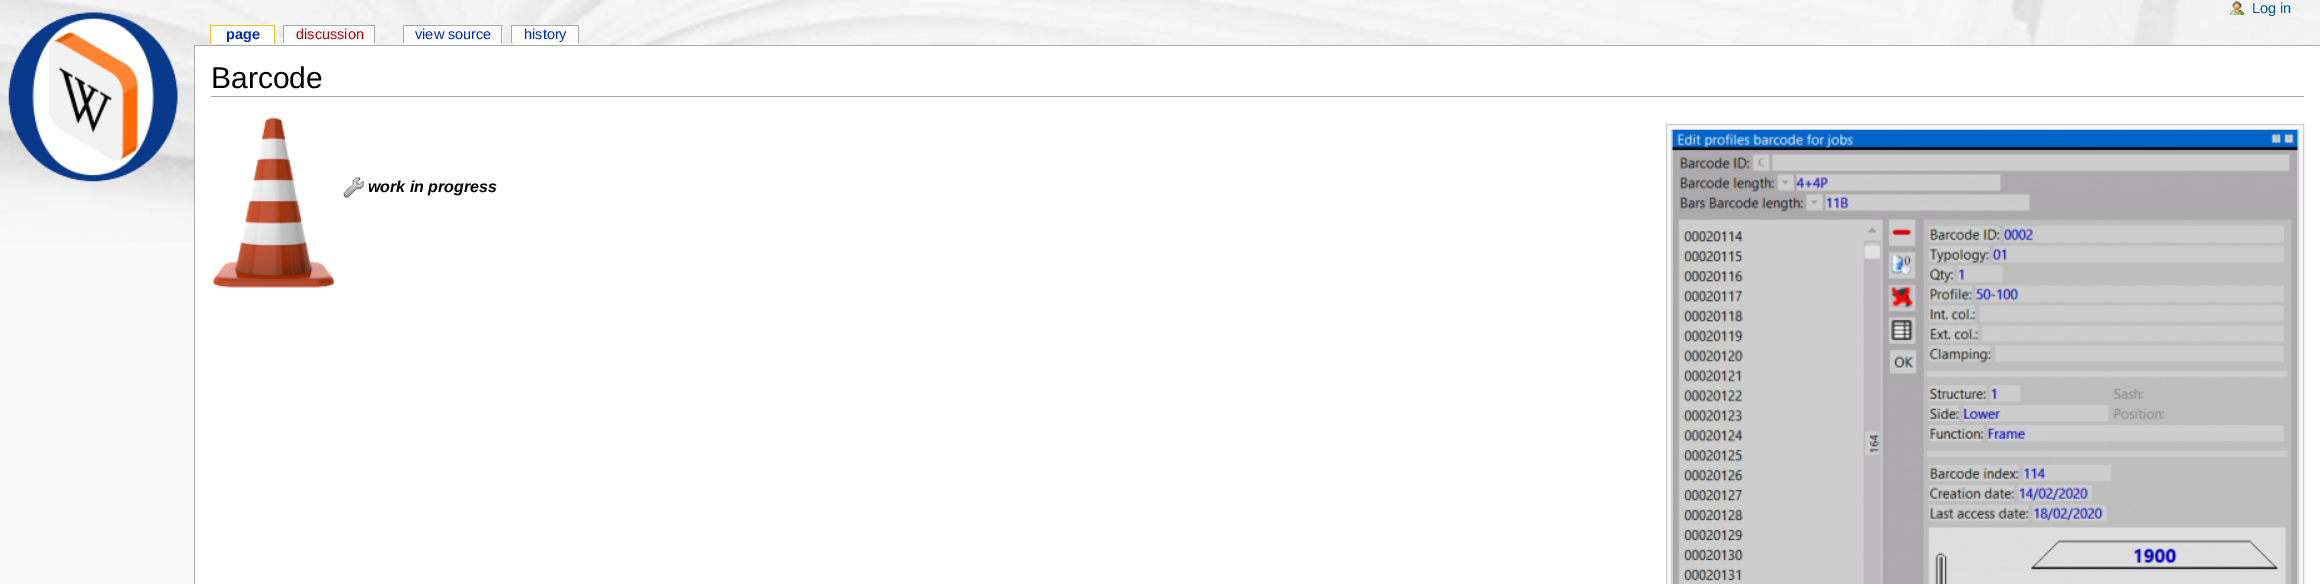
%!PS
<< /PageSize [2320 584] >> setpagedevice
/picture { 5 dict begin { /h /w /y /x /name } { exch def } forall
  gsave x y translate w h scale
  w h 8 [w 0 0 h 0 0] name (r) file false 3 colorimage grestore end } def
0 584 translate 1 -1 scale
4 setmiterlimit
0.976 setgray
0 0 2320 584 rectfill
(img1.rgb) 0 0 2320 243 picture
(img2.rgb) 2229 1 15 14 picture
/LiberationSans-Regular [14.5 0 0 -14.5 0 0] selectfont
0 0.345 0.588 setrgbcolor
2252 13 moveto (Log in) show
(img3.rgb) 8 12 170 170 picture
1 setgray
211 26 63 18 rectfill
/LiberationSans-Bold [14.5 0 0 -14.5 0 0] selectfont
0 0.169 0.722 setrgbcolor
226 39 moveto (page) show
0.98 0.741 0.137 setrgbcolor
210 25 65 1 rectfill
274 25 1 19 rectfill
210 25 1 19 rectfill
0.984 setgray
284 26 90 19 rectfill
/LiberationSans-Regular [14.5 0 0 -14.5 0 0] selectfont
0.729 0 0 setrgbcolor
296 39 moveto (discussion) show
0.667 setgray
283 25 92 1 rectfill
374 25 1 18 rectfill
283 25 1 18 rectfill
0.984 setgray
404 26 97 19 rectfill
0 0.169 0.722 setrgbcolor
415 39 moveto (view source) show
1 setgray
502 26 1 17 rectfill
0.667 setgray
403 25 100 1 rectfill
501 25 1 18 rectfill
403 25 1 18 rectfill
0.984 setgray
513 26 65 19 rectfill
0 0.169 0.722 setrgbcolor
524 39 moveto (history) show
1 setgray
512 26 1 17 rectfill
0.667 setgray
511 25 68 1 rectfill
578 25 1 18 rectfill
511 25 1 18 rectfill
1 setgray
195 46 2125 538 rectfill
0.667 setgray
194 45 2126 1 rectfill
194 45 1 539 rectfill
211 96 2093 1 rectfill
/LiberationSans-Regular [30 0 0 -30 0 0] selectfont
0 setgray
211 88 moveto (Barcode) show
(img4.rgb) 212 117 123 171 picture
(img5.rgb) 343 177 21 21 picture
/LiberationSans-BoldItalic [16 0 0 -16 0 0] selectfont
368 192 moveto (work in progress) show
0.976 setgray
newpath 1666.5 124.5 moveto 2303.5 124.5 lineto 2303.5 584.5 lineto 1666.5 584.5 lineto closepath gsave fill grestore
0.8 setgray
stroke
1671.5 129.5 627 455 rectstroke
(img6.rgb) 1672 130 626 454 picture
showpage
